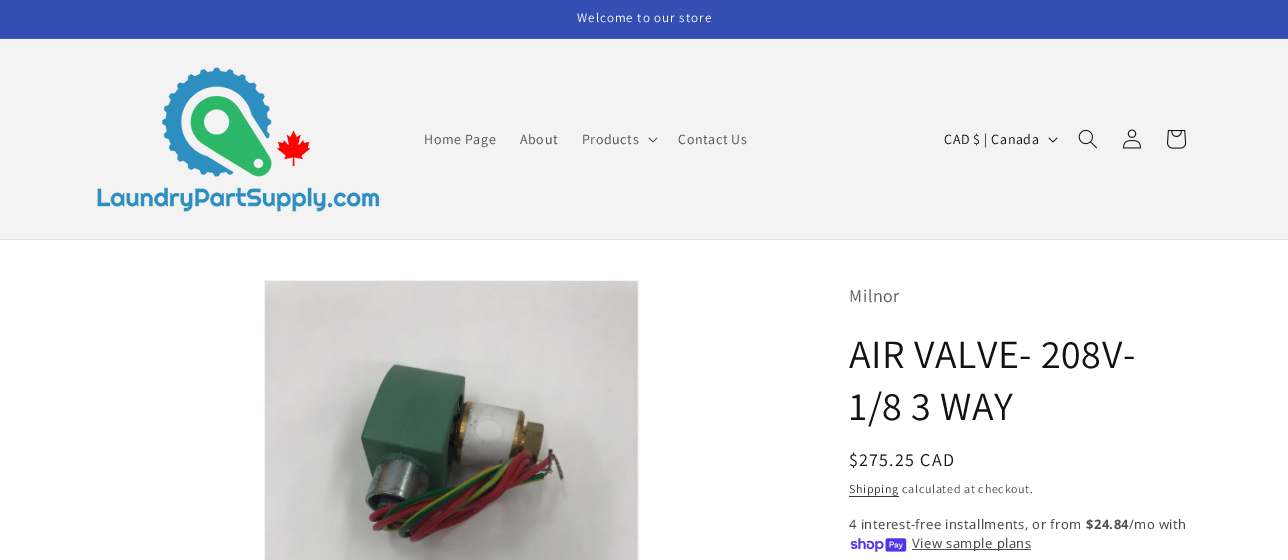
%!PS
<< /PageSize [1288 560] >> setpagedevice
/picture { 5 dict begin { /h /w /y /x /name } { exch def } forall
  gsave x y translate w h scale
  w h 8 [w 0 0 h 0 0] name (r) file false 3 colorimage grestore end } def
0 560 translate 1 -1 scale
4 setmiterlimit
1 setgray
0 0 1288 560 rectfill
0.2 0.31 0.706 setrgbcolor
0 0 1288 38 rectfill
0.263 0.365 0.729 setrgbcolor
0 38 1288 1 rectfill
/Assistant-Regular [13 0 0 -13 0 0] selectfont
1 setgray
577 22 moveto 1 0 (Welcome to our store) ashow
0.953 setgray
0 39 1288 200 rectfill
0.882 setgray
0 239 1288 1 rectfill
(img1.rgb) 97 67 282 145 picture
/Assistant-Regular [14 0 0 -14 0 0] selectfont
0.302 setgray
424 144 moveto 0.6 0 (Home Page) ashow
520 144 moveto 0.6 0 (About) ashow
582 144 moveto 0.6 0 (Products) ashow
(img2.rgb) 648 137 10 6 picture
678 144 moveto 0.6 0 (Contact Us) ashow
0.071 setgray
944 144 moveto 0.6 0 (CAD $ | Canada) ashow
(img3.rgb) 1048 137 10 6 picture
(img4.rgb) 1078 129 19 20 picture
(img5.rgb) 1123 129 18 20 picture
(img6.rgb) 1167 130 20 19 picture
0.953 setgray
264.5 280.5 374 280 rectstroke
(img7.rgb) 265 281 373 279 picture
/Assistant-Regular [18 0 0 -18 0 0] selectfont
0.349 setgray
849 302 moveto 0.6 0 (Milnor) ashow
/Assistant-Regular [40 0 0 -40 0 0] selectfont
0.071 setgray
849 368 moveto 0.6 0 (AIR VALVE- 208V-) ashow
849 420 moveto 0.6 0 (1/8 3 WAY) ashow
/Assistant-Regular [18 0 0 -18 0 0] selectfont
849 466 moveto 1.25 0 ($275.25 CAD) ashow
/Assistant-Regular [12 0 0 -12 0 0] selectfont
0.212 setgray
849 493 moveto 0.7 0 (Shipping) ashow
849 496 50 1 rectfill
0.302 setgray
902 493 moveto 0.7 0 (calculated at checkout.) ashow
/NotoSans-Regular [13 0 0 -13 0 0] selectfont
849 529 moveto 0.4 0 (4 interest-free installments, or from) ashow
/NotoSans-Bold [13 0 0 -13 0 0] selectfont
1086 529 moveto 0.4 0 ($24.84) ashow
/NotoSans-Regular [13 0 0 -13 0 0] selectfont
1129 529 moveto 0.4 0 (/mo with) ashow
(img8.rgb) 850 538 57 14 picture
912 549 119 1 rectfill
912 548 moveto 0.4 0 (View sample plans) ashow
showpage
